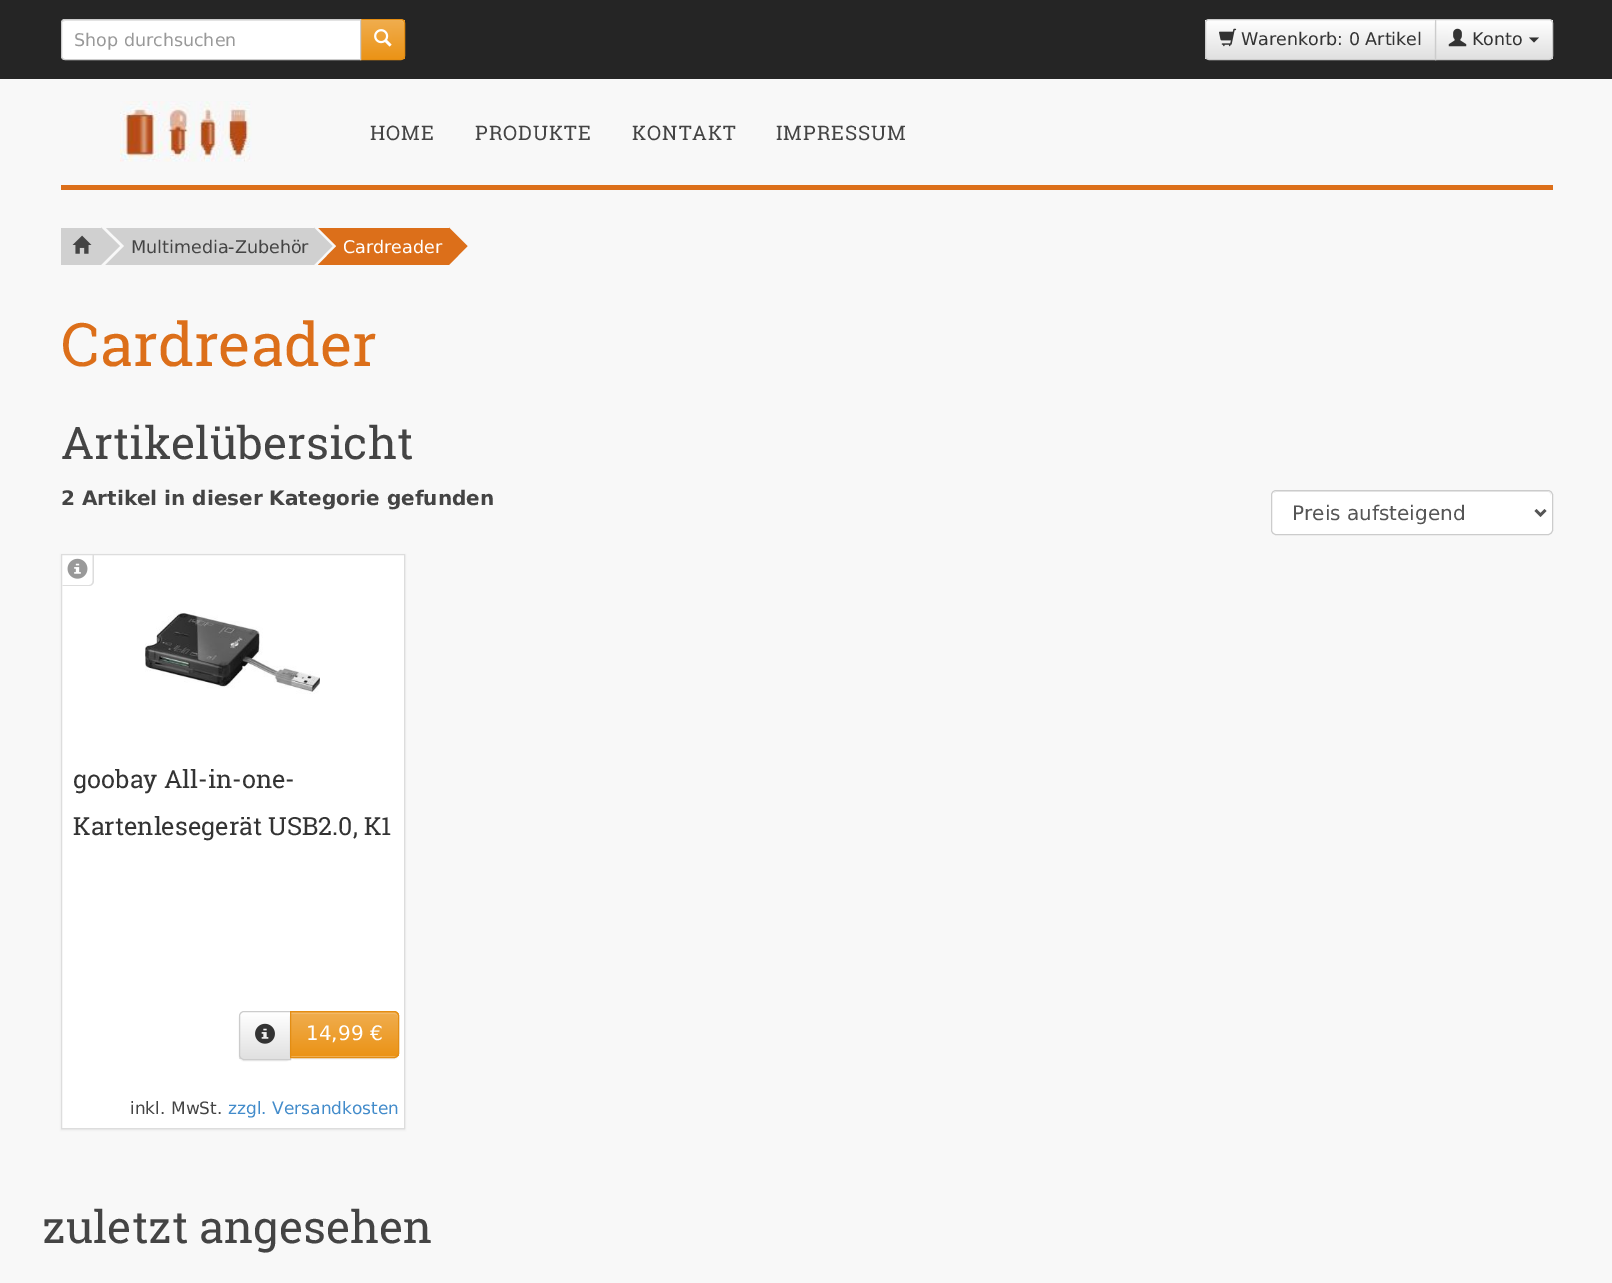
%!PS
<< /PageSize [1612 1283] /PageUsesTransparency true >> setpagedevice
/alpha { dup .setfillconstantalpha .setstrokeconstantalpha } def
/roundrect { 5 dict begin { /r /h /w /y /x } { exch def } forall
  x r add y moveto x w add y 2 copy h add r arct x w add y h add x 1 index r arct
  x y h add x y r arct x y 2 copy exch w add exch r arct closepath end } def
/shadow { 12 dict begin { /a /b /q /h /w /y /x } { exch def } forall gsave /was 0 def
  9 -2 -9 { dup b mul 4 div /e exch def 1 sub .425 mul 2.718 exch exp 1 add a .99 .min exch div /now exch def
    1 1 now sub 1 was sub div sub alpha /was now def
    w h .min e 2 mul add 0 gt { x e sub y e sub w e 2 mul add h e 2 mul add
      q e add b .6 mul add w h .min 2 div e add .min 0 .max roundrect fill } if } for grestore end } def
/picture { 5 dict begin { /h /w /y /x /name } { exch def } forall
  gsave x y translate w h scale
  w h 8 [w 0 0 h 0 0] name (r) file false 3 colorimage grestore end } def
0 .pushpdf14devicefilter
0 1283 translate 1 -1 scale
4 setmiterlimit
0.973 setgray
0 0 1612 1283 rectfill
0.145 setgray
0 0 1612 79 rectfill
gsave
newpath 360 19 moveto 401 19 lineto 403 19 405 21 405 23 curveto 405 56 lineto 405 58 403 60 401 60 curveto 360 60 lineto closepath clip newpath
gsave newpath 361 20 moveto 405 20 lineto 405 59 lineto 361 59 lineto closepath clip newpath
<< /ShadingType 2 /ColorSpace /DeviceRGB /Coords [383 20 383 59] /Extend [true true] /Function << /FunctionType 2 /Domain [0 1] /C0 [0.941 0.678 0.306] /C1 [0.922 0.576 0.086] /N 1 >> >> shfill grestore
grestore
0.949 0.725 0.408 setrgbcolor
newpath 361 21 moveto 401 21 lineto 403 21 404 22 404 24 curveto 404 22 lineto 404 21 403 20 402 20 curveto 361 20 lineto closepath fill
0.89 0.553 0.075 setrgbcolor
newpath 360.5 19.5 moveto 401 19.5 lineto 403 19.5 404.5 21 404.5 23 curveto 404.5 56 lineto 404.5 58 403 59.5 401 59.5 curveto 360.5 59.5 lineto closepath stroke
1 setgray
newpath 65 19 moveto 361 19 lineto 361 60 lineto 65 60 lineto 63 60 61 58 61 56 curveto 61 23 lineto 61 21 63 19 65 19 curveto closepath fill
0.925 setgray
newpath 65 21 moveto 360 21 lineto 360 20 lineto 66 20 lineto 64 20 63 21 63 22 curveto closepath fill
0.8 setgray
newpath 65 19.5 moveto 360.5 19.5 lineto 360.5 59.5 lineto 65 59.5 lineto 63 59.5 61.5 58 61.5 56 curveto 61.5 23 lineto 61.5 21 63 19.5 65 19.5 curveto closepath stroke
/DejaVuSans-Regular [17.5 0 0 -17.5 0 0] selectfont
0.6 setgray
74 46 moveto (Shop durchsuchen) show
(img1.rgb) 374 29 18 18 picture
gsave
newpath 1209 19 moveto 1436 19 lineto 1436 60 lineto 1209 60 lineto 1207 60 1205 58 1205 56 curveto 1205 23 lineto 1205 21 1207 19 1209 19 curveto closepath clip newpath
gsave newpath 1205 20 moveto 1435 20 lineto 1435 59 lineto 1205 59 lineto closepath clip newpath
<< /ShadingType 2 /ColorSpace /DeviceRGB /Coords [1321 20 1321 59] /Extend [true true] /Function << /FunctionType 2 /Domain [0 1] /C0 [1 1 1] /C1 [0.878 0.878 0.878] /N 1 >> >> shfill grestore
grestore
0.8 setgray
newpath 1209 19.5 moveto 1435.5 19.5 lineto 1435.5 59.5 lineto 1209 59.5 lineto 1207 59.5 1205.5 58 1205.5 56 curveto 1205.5 23 lineto 1205.5 21 1207 19.5 1209 19.5 curveto closepath stroke
(img2.rgb) 1219 28 18 19 picture
0.2 setgray
1241 45 moveto (Warenkorb: 0 Artikel) show
0 setgray
1435 20 118 41 4 0.5 0.07 shadow
gsave
newpath 1435 19 moveto 1549 19 lineto 1551 19 1553 21 1553 23 curveto 1553 56 lineto 1553 58 1551 60 1549 60 curveto 1435 60 lineto closepath clip newpath
gsave newpath 1436 20 moveto 1553 20 lineto 1553 59 lineto 1436 59 lineto closepath clip newpath
<< /ShadingType 2 /ColorSpace /DeviceRGB /Coords [1494 20 1494 59] /Extend [true true] /Function << /FunctionType 2 /Domain [0 1] /C0 [1 1 1] /C1 [0.878 0.878 0.878] /N 1 >> >> shfill grestore
grestore
0.8 setgray
newpath 1435.5 19.5 moveto 1549 19.5 lineto 1551 19.5 1552.5 21 1552.5 23 curveto 1552.5 56 lineto 1552.5 58 1551 59.5 1549 59.5 curveto 1435.5 59.5 lineto closepath stroke
(img3.rgb) 1448 28 19 19 picture
0.2 setgray
1472 45 moveto (Konto) show
newpath 1529 37.5 moveto 1539 37.5 lineto 1534 42.5 lineto closepath fill
0.863 0.435 0.102 setrgbcolor
61 185 1492 5 rectfill
(img4.rgb) 120 101 132 61 picture
/RobotoSlab-Regular [20 0 0 -20 0 0] selectfont
0.267 setgray
370 140 moveto 1 0 (HOME) ashow
475 140 moveto 1 0 (PRODUKTE) ashow
632 140 moveto 1 0 (KONTAKT) ashow
776 140 moveto 1 0 (IMPRESSUM) ashow
0.816 setgray
61 228 40 37 rectfill
(img5.rgb) 72 235 20 19 picture
105 228 209 37 rectfill
0.973 setgray
newpath 105 265 moveto 105 227.5 lineto 124 246 lineto closepath fill
0.816 setgray
newpath 101 265 moveto 101 227.5 lineto 120 246 lineto closepath fill
/DejaVuSans-Regular [17.5 0 0 -17.5 0 0] selectfont
0.267 setgray
131 253 moveto (Multimedia-Zubehör) show
0.863 0.435 0.102 setrgbcolor
318 228 131 37 rectfill
0.973 setgray
newpath 317.5 265 moveto 317.5 227.5 lineto 336 246 lineto closepath fill
0.816 setgray
newpath 314 265 moveto 314 227.5 lineto 332.5 246 lineto closepath fill
1 setgray
343 253 moveto (Cardreader) show
0.863 0.435 0.102 setrgbcolor
newpath 449 265 moveto 449 227.5 lineto 467.5 246 lineto closepath fill
/RobotoSlab-Regular [60 0 0 -60 0 0] selectfont
61 366 moveto (Cardreader) show
/RobotoSlab-Regular [45 0 0 -45 0 0] selectfont
0.267 setgray
61 459 moveto (Artikelübersicht) show
/DejaVuSans-Bold [20 0 0 -20 0 0] selectfont
61 505 moveto (2 Artikel in dieser Kategorie gefunden) show
1 setgray
1271 490 282 45 5 roundrect fill
0.925 setgray
newpath 1276 492 moveto 1548 492 lineto 1550 492 1551 494 1551 496 curveto 1551 495 lineto 1551 493 1549 491 1547 491 curveto 1277 491 lineto 1276 491 1274 492 1274 493 curveto closepath fill
0.8 setgray
1271.5 490.5 281 44 4.5 roundrect stroke
0.333 setgray
2.5 setlinewidth
newpath 1535.5 510 moveto 1540.5 515 lineto 1545.5 510 lineto stroke
/DejaVuSans-Regular [20 0 0 -20 0 0] selectfont
1292 520 moveto (Preis aufsteigend) show
0 setgray
61 555 344 575 0 1 0.07 shadow
1 setgray
newpath 61.5 554.5 moveto 404.5 554.5 lineto 404.5 1128.5 lineto 61.5 1128.5 lineto closepath gsave fill grestore
0.867 setgray
1 setlinewidth
stroke
newpath 62.5 555 moveto 94 555 lineto 94 581 lineto 94 584 91.5 586 89 586 curveto 62.5 586 lineto closepath 62.5 555 moveto 92.5 555 lineto 92.5 581 lineto 92.5 583.5 91 585 89 585 curveto 62.5 585 lineto closepath eofill
(img6.rgb) 67 558 21 21 picture
(img7.rgb) 145 610 175 84 picture
/RobotoSlab-Regular [25 0 0 -25 0 0] selectfont
0.2 setgray
73 788 moveto (goobay All-in-one-) show
73 835 moveto (Kartenlesegerät USB2.0, K1) show
0 setgray
239 1013 52 48 5 0.5 0.07 shadow
1 setgray
newpath 244 1011 moveto 291 1011 lineto 291 1060 lineto 244 1060 lineto 241 1060 239 1058 239 1055 curveto 239 1016 lineto 239 1013 241 1011 244 1011 curveto closepath fill
gsave
newpath 244 1011 moveto 291 1011 lineto 291 1060 lineto 244 1060 lineto 241 1060 239 1058 239 1055 curveto 239 1016 lineto 239 1013 241 1011 244 1011 curveto closepath clip newpath
gsave newpath 239 1013 moveto 290 1013 lineto 290 1059 lineto 239 1059 lineto closepath clip newpath
<< /ShadingType 2 /ColorSpace /DeviceRGB /Coords [265 1013 265 1059] /Extend [true true] /Function << /FunctionType 2 /Domain [0 1] /C0 [1 1 1] /C1 [0.878 0.878 0.878] /N 1 >> >> shfill grestore
grestore
0.8 setgray
newpath 244 1011.5 moveto 290.5 1011.5 lineto 290.5 1059.5 lineto 244 1059.5 lineto 241.5 1059.5 239.5 1057.5 239.5 1055 curveto 239.5 1016 lineto 239.5 1013.5 241.5 1011.5 244 1011.5 curveto closepath stroke
(img8.rgb) 255 1023 20 21 picture
0 setgray
290 1013 109 46 5 0.5 0.07 shadow
0.941 0.678 0.306 setrgbcolor
newpath 290 1011 moveto 394 1011 lineto 397 1011 399 1013 399 1016 curveto 399 1053 lineto 399 1056 397 1058 394 1058 curveto 290 1058 lineto closepath fill
gsave
newpath 290 1011 moveto 394 1011 lineto 397 1011 399 1013 399 1016 curveto 399 1053 lineto 399 1056 397 1058 394 1058 curveto 290 1058 lineto closepath clip newpath
gsave newpath 291 1013 moveto 399 1013 lineto 399 1056 lineto 291 1056 lineto closepath clip newpath
<< /ShadingType 2 /ColorSpace /DeviceRGB /Coords [344 1013 344 1056] /Extend [true true] /Function << /FunctionType 2 /Domain [0 1] /C0 [0.941 0.678 0.306] /C1 [0.922 0.576 0.086] /N 1 >> >> shfill grestore
grestore
0.949 0.725 0.408 setrgbcolor
newpath 291 1014 moveto 394 1014 lineto 396 1014 398 1015 398 1018 curveto 398 1017 lineto 398 1015 396 1013 394 1013 curveto 291 1013 lineto closepath fill
0.89 0.553 0.075 setrgbcolor
newpath 290.5 1011.5 moveto 394 1011.5 lineto 396.5 1011.5 398.5 1013.5 398.5 1016 curveto 398.5 1053 lineto 398.5 1055.5 396.5 1057.5 394 1057.5 curveto 290.5 1057.5 lineto closepath stroke
/DejaVuSans-Regular [20 0 0 -20 0 0] selectfont
1 setgray
306 1040 moveto (14,99 €) show
/DejaVuSans-Regular [17 0 0 -17 0 0] selectfont
0.267 setgray
130 1114 moveto (inkl. MwSt.) show
0.259 0.545 0.792 setrgbcolor
228 1114 moveto (zzgl. Versandkosten) show
/RobotoSlab-Regular [45 0 0 -45 0 0] selectfont
0.267 setgray
42 1243 moveto (zuletzt angesehen) show
.poppdf14devicefilter showpage
